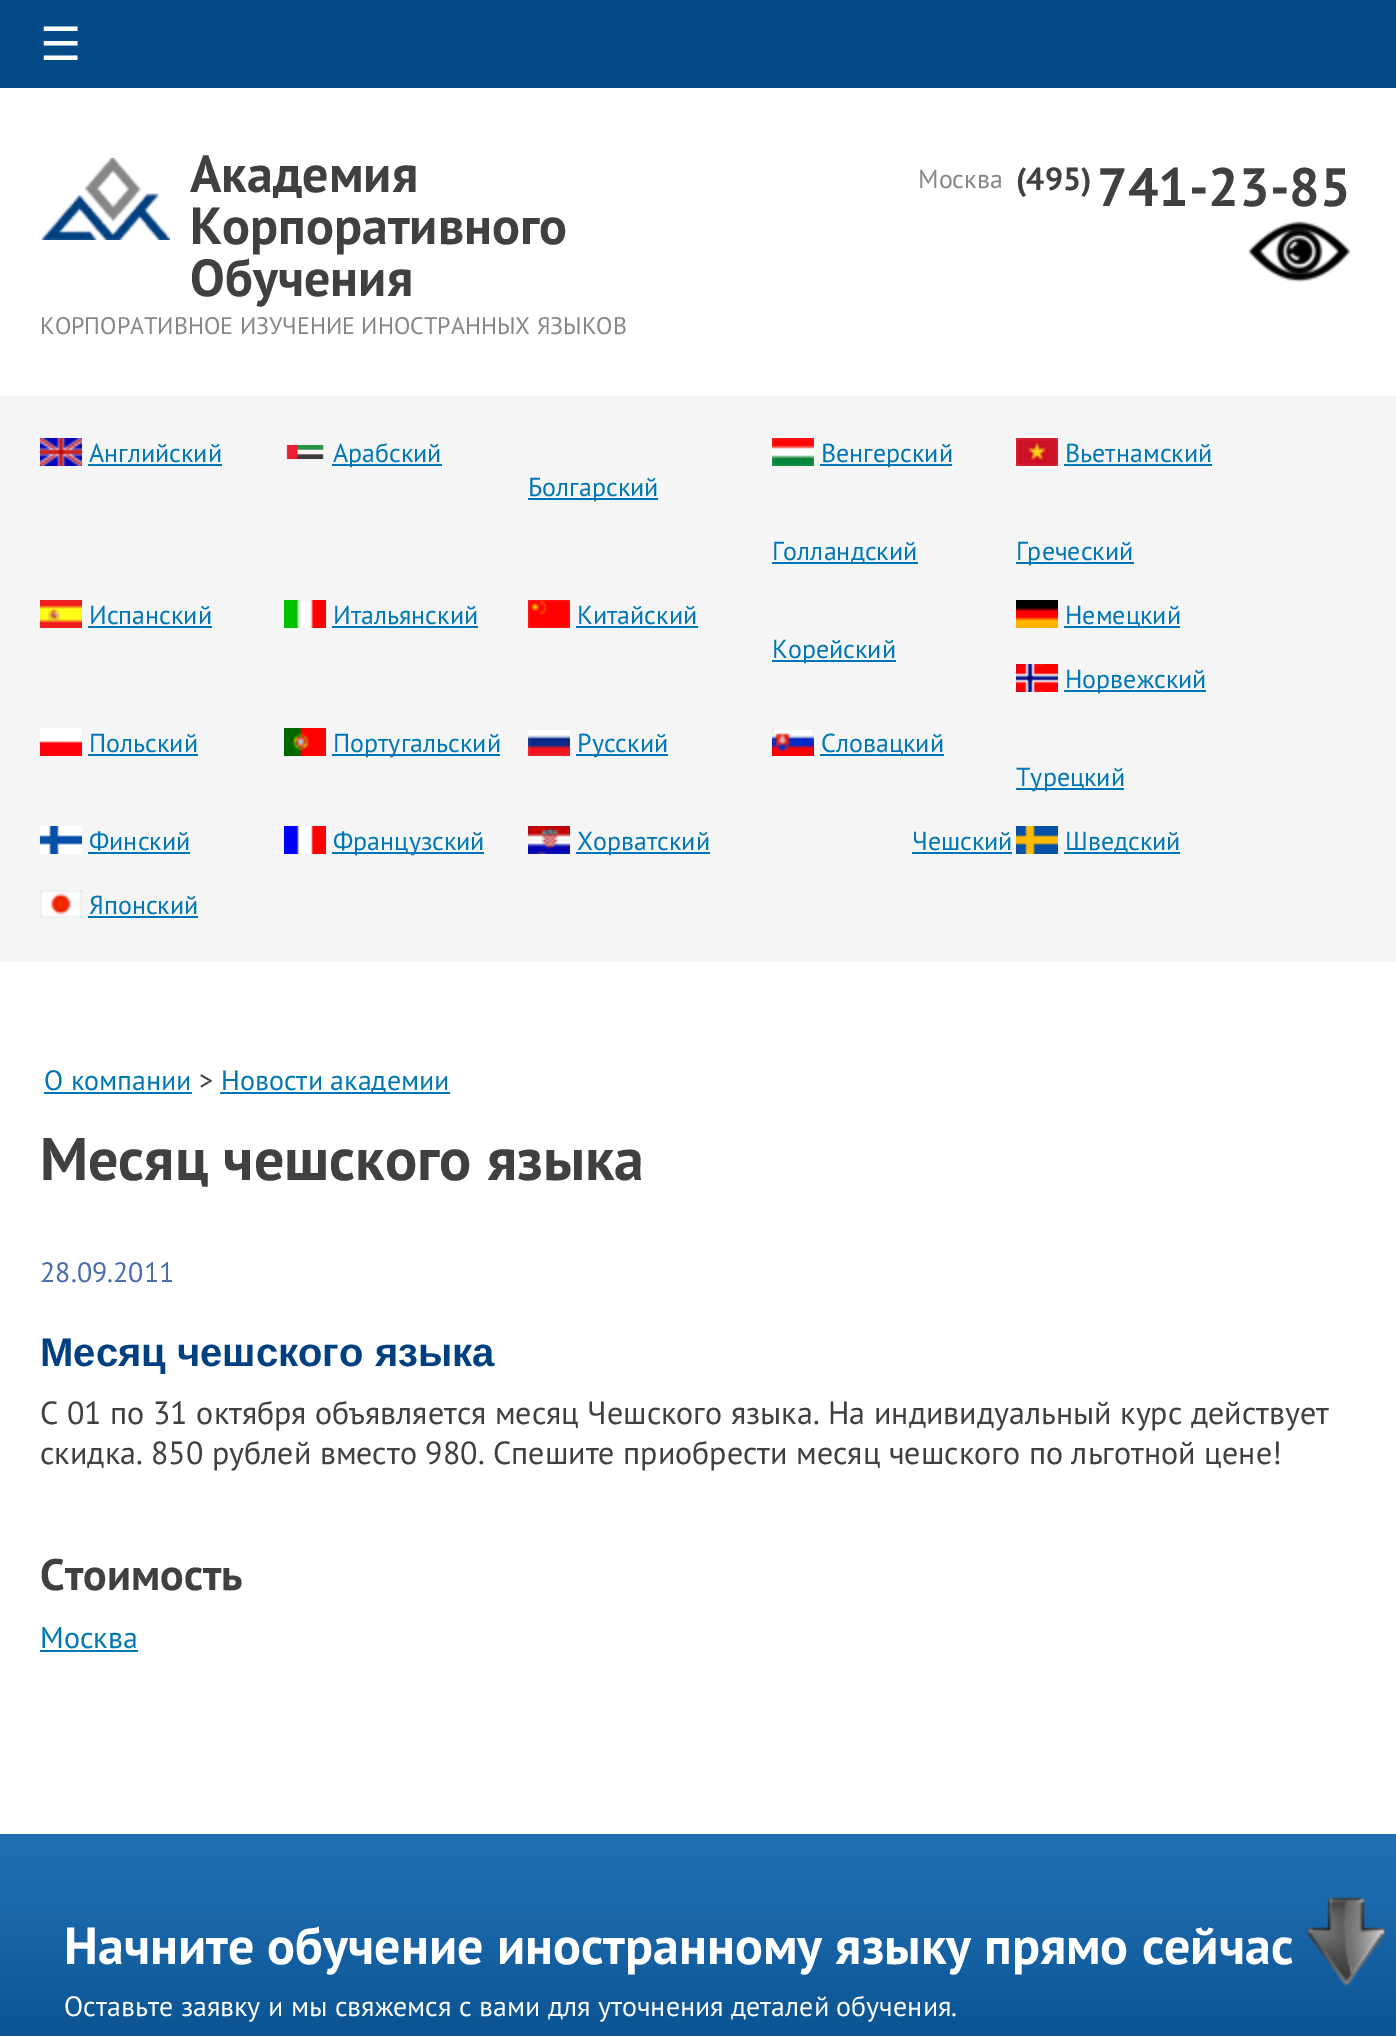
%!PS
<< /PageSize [1396 2036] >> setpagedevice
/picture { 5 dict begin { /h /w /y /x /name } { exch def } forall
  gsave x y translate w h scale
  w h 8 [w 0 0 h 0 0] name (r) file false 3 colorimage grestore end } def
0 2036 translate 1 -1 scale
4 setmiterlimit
1 setgray
0 0 1396 2036 rectfill
0.016 0.29 0.529 setrgbcolor
0 0 1396 88 rectfill
/DejaVuSans-Regular [46 0 0 -46 0 0] selectfont
1 setgray
40 60 moveto (☰) show
(img1.rgb) 41 158 129 82 picture
/PTSans-Bold [52 0 0 -52 0 0] selectfont
0.251 setgray
190 192 moveto (Академия) show
190 244 moveto (Корпоративного) show
190 296 moveto (Обучения) show
/PTSans-Regular [24 0 0 -24 0 0] selectfont
0.525 setgray
40 334 moveto (КОРПОРАТИВНОЕ ИЗУЧЕНИЕ ИНОСТРАННЫХ ЯЗЫКОВ) show
/PTSans-Regular [26 0 0 -26 0 0] selectfont
918 188 moveto (Москва) show
/PTSans-Bold [32 0 0 -32 0 0] selectfont
0.251 setgray
1016 190 moveto (\(495\)) show
/PTSans-Bold [54 0 0 -54 0 0] selectfont
1097 206 moveto (741-23-85) show
(img2.rgb) 1248 221 102 61 picture
0.961 setgray
0 396 1396 566 rectfill
(img3.rgb) 40 438 42 28 picture
/PTSans-Regular [26 0 0 -26 0 0] selectfont
0 0.467 0.71 setrgbcolor
89 462 moveto (Английский) show
88 464 134 2 rectfill
(img4.rgb) 286 444 38 16 picture
332 464 110 2 rectfill
333 462 moveto (Арабский) show
(img5.rgb) 772 438 42 28 picture
820 464 132 2 rectfill
821 462 moveto (Венгерский) show
(img6.rgb) 1016 438 42 28 picture
1065 462 moveto (Вьетнамский) show
1064 464 148 2 rectfill
528 498 130 2 rectfill
528 496 moveto (Болгарский) show
772 562 146 2 rectfill
772 560 moveto (Голландский) show
1016 562 118 2 rectfill
1016 560 moveto (Греческий) show
(img7.rgb) 40 600 42 28 picture
89 624 moveto (Испанский) show
88 626 124 2 rectfill
(img8.rgb) 284 600 42 28 picture
333 624 moveto (Итальянский) show
332 626 146 2 rectfill
(img9.rgb) 528 600 42 28 picture
577 624 moveto (Китайский) show
576 626 122 2 rectfill
(img10.rgb) 1016 600 42 28 picture
1064 626 116 2 rectfill
1065 624 moveto (Немецкий) show
772 660 124 2 rectfill
772 658 moveto (Корейский) show
(img11.rgb) 1016 664 42 28 picture
1064 690 142 2 rectfill
1065 688 moveto (Норвежский) show
(img12.rgb) 40 728 42 28 picture
89 752 moveto (Польский) show
88 754 110 2 rectfill
(img13.rgb) 284 728 42 28 picture
332 754 168 2 rectfill
333 752 moveto (Португальский) show
(img14.rgb) 528 730 42 26 picture
576 754 92 2 rectfill
577 752 moveto (Русский) show
(img15.rgb) 772 728 42 28 picture
820 754 124 2 rectfill
821 752 moveto (Словацкий) show
1016 788 108 2 rectfill
1016 786 moveto (Турецкий) show
(img16.rgb) 40 826 42 28 picture
89 850 moveto (Финский) show
88 852 102 2 rectfill
(img17.rgb) 284 826 42 28 picture
332 852 152 2 rectfill
333 850 moveto (Французский) show
(img18.rgb) 528 826 42 28 picture
576 852 134 2 rectfill
577 850 moveto (Хорватский) show
912 850 moveto (Чешский) show
912 852 100 2 rectfill
(img19.rgb) 1016 826 42 28 picture
1064 852 116 2 rectfill
1065 850 moveto (Шведский) show
(img20.rgb) 40 890 42 28 picture
89 914 moveto (Японский) show
88 916 110 2 rectfill
/PTSans-Regular [28 0 0 -28 0 0] selectfont
44 1090 moveto (О компании) show
44 1092 148 2 rectfill
0.251 setgray
199 1090 moveto (>) show
0 0.467 0.71 setrgbcolor
220 1092 230 2 rectfill
221 1090 moveto (Новости академии) show
/PTSans-Bold [60 0 0 -60 0 0] selectfont
0.251 setgray
40 1180 moveto (Месяц чешского языка) show
/PTSans-Regular [28 0 0 -28 0 0] selectfont
0.282 0.427 0.667 setrgbcolor
40 1282 moveto (28.09.2011) show
/LiberationSans-Bold [40 0 0 -40 0 0] selectfont
0 0.251 0.502 setrgbcolor
40 1366 moveto (Месяц чешского языка) show
/PTSans-Regular [32 0 0 -32 0 0] selectfont
0.251 setgray
40 1424 moveto (С 01 по 31 октября объявляется месяц Чешского языка. На индивидуальный курс действует) show
40 1464 moveto (скидка. 850 рублей вместо 980. Спешите приобрести месяц чешского по льготной цене!) show
/PTSans-Bold [44 0 0 -44 0 0] selectfont
40 1590 moveto (Стоимость) show
/PTSans-Regular [30 0 0 -30 0 0] selectfont
0 0.467 0.71 setrgbcolor
40 1648 moveto (Москва) show
40 1650 98 2 rectfill
(img21.rgb) 0 1834 1396 202 picture
/PTSans-Bold [52 0 0 -52 0 0] selectfont
1 setgray
64 1964 moveto (Начните обучение иностранному языку прямо сейчас) show
/PTSans-Regular [28 0 0 -28 0 0] selectfont
64 2016 moveto (Оставьте заявку и мы свяжемся с вами для уточнения деталей обучения.) show
(img22.rgb) 1305 1897 82 90 picture
showpage
